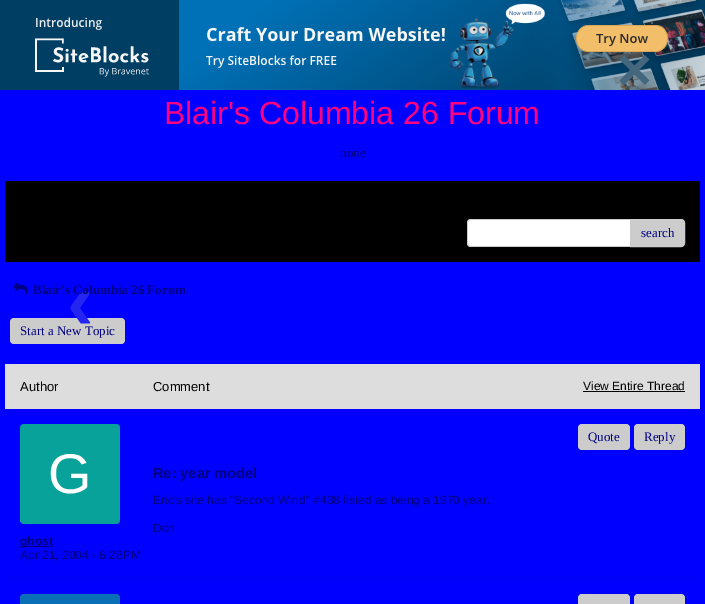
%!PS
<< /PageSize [705 604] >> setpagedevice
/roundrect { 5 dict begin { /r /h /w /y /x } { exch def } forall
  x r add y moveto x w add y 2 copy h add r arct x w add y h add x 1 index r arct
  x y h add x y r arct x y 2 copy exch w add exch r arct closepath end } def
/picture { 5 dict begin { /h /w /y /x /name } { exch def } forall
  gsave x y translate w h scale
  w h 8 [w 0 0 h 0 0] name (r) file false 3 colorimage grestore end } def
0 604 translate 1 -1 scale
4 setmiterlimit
0 0 1 setrgbcolor
0 0 705 604 rectfill
(img1.rgb) 0 0 705 90 picture
/LiberationSans-Bold [60 0 0 -60 0 0] selectfont
0.267 0.404 0.49 setrgbcolor
617 90 moveto (×) show
0.8 setgray
10 318 115 26 4 roundrect fill
/LiberationSans-Bold [80 0 0 -80 0 0] selectfont
0.145 0.145 0.949 setrgbcolor
67 329 moveto (‹) show
0.867 setgray
5 364 695 45 rectfill
/LiberationSans-Regular [13 0 0 -13 0 0] selectfont
0 setgray
20 391 moveto (Author) show
153 391 moveto (Comment) show
/LiberationSans-Regular [12 0 0 -12 0 0] selectfont
583 390 moveto (View Entire Thread) show
583 391 102 1 rectfill
0 0 0.949 setrgbcolor
5 577 695 2 rectfill
0.031 0.635 0.604 setrgbcolor
20 424 100 100 4 roundrect fill
/LiberationSans-Regular [56 0 0 -56 0 0] selectfont
1 setgray
48 493 moveto (G) show
0 0 0.502 setrgbcolor
20 546 33 1 rectfill
/LiberationSans-Bold [12 0 0 -12 0 0] selectfont
20 545 moveto (ghost) show
/LiberationSans-Regular [12 0 0 -12 0 0] selectfont
20 559 moveto (Apr 21, 2004 - 6:28PM) show
0.8 setgray
578 424 52 26 4 roundrect fill
/LiberationSerif-Regular [13 0 0 -13 0 0] selectfont
0 0 0.502 setrgbcolor
588 441 moveto (Quote) show
0.8 setgray
634 424 51 26 4 roundrect fill
0 0 0.502 setrgbcolor
644 441 moveto (Reply) show
/LiberationSans-Bold [14.5 0 0 -14.5 0 0] selectfont
153 478 moveto (Re: year model) show
/LiberationSans-Regular [12 0 0 -12 0 0] selectfont
153 504 moveto (Eric's site has "Second Wind" #438 listed as being a 1970 year.) show
153 532 moveto (Don) show
0.039 0.435 0.718 setrgbcolor
20 594 100 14 4 roundrect fill
0.8 setgray
578 594 52 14 4 roundrect fill
634 594 51 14 4 roundrect fill
(img2.rgb) 13 282 15 13 picture
/LiberationSerif-Bold [13 0 0 -13 0 0] selectfont
0 0 0.502 setrgbcolor
33 294 moveto (Blair's Columbia 26 Forum) show
/LiberationSerif-Regular [13 0 0 -13 0 0] selectfont
20 335 moveto (Start a New Topic) show
/LiberationSans-Regular [32 0 0 -32 0 0] selectfont
1 0 0.498 setrgbcolor
164 124 moveto (Blair's Columbia 26 Forum) show
/LiberationSerif-Regular [13 0 0 -13 0 0] selectfont
0 0 0.502 setrgbcolor
340 157 moveto (none) show
0 setgray
5 181 695 81 rectfill
1 setgray
467 219 208 28 4 roundrect fill
0.8 setgray
newpath 471 219 moveto 671 219 lineto 673 219 675 221 675 223 curveto 675 243 lineto 675 245 673 247 671 247 curveto 471 247 lineto 469 247 467 245 467 243 curveto 467 223 lineto 467 221 469 219 471 219 curveto closepath 471 220 moveto 671 220 lineto 673 220 675 221 675 223 curveto 675 243 lineto 675 245 673 246 671 246 curveto 471 246 lineto 469 246 468 245 468 243 curveto 468 223 lineto 468 221 469 220 471 220 curveto closepath eofill
newpath 630.5 219.5 moveto 681 219.5 lineto 683 219.5 684.5 221 684.5 223 curveto 684.5 243 lineto 684.5 245 683 246.5 681 246.5 curveto 630.5 246.5 lineto closepath gsave fill grestore
stroke
0 0 0.502 setrgbcolor
641 237 moveto (search) show
showpage
